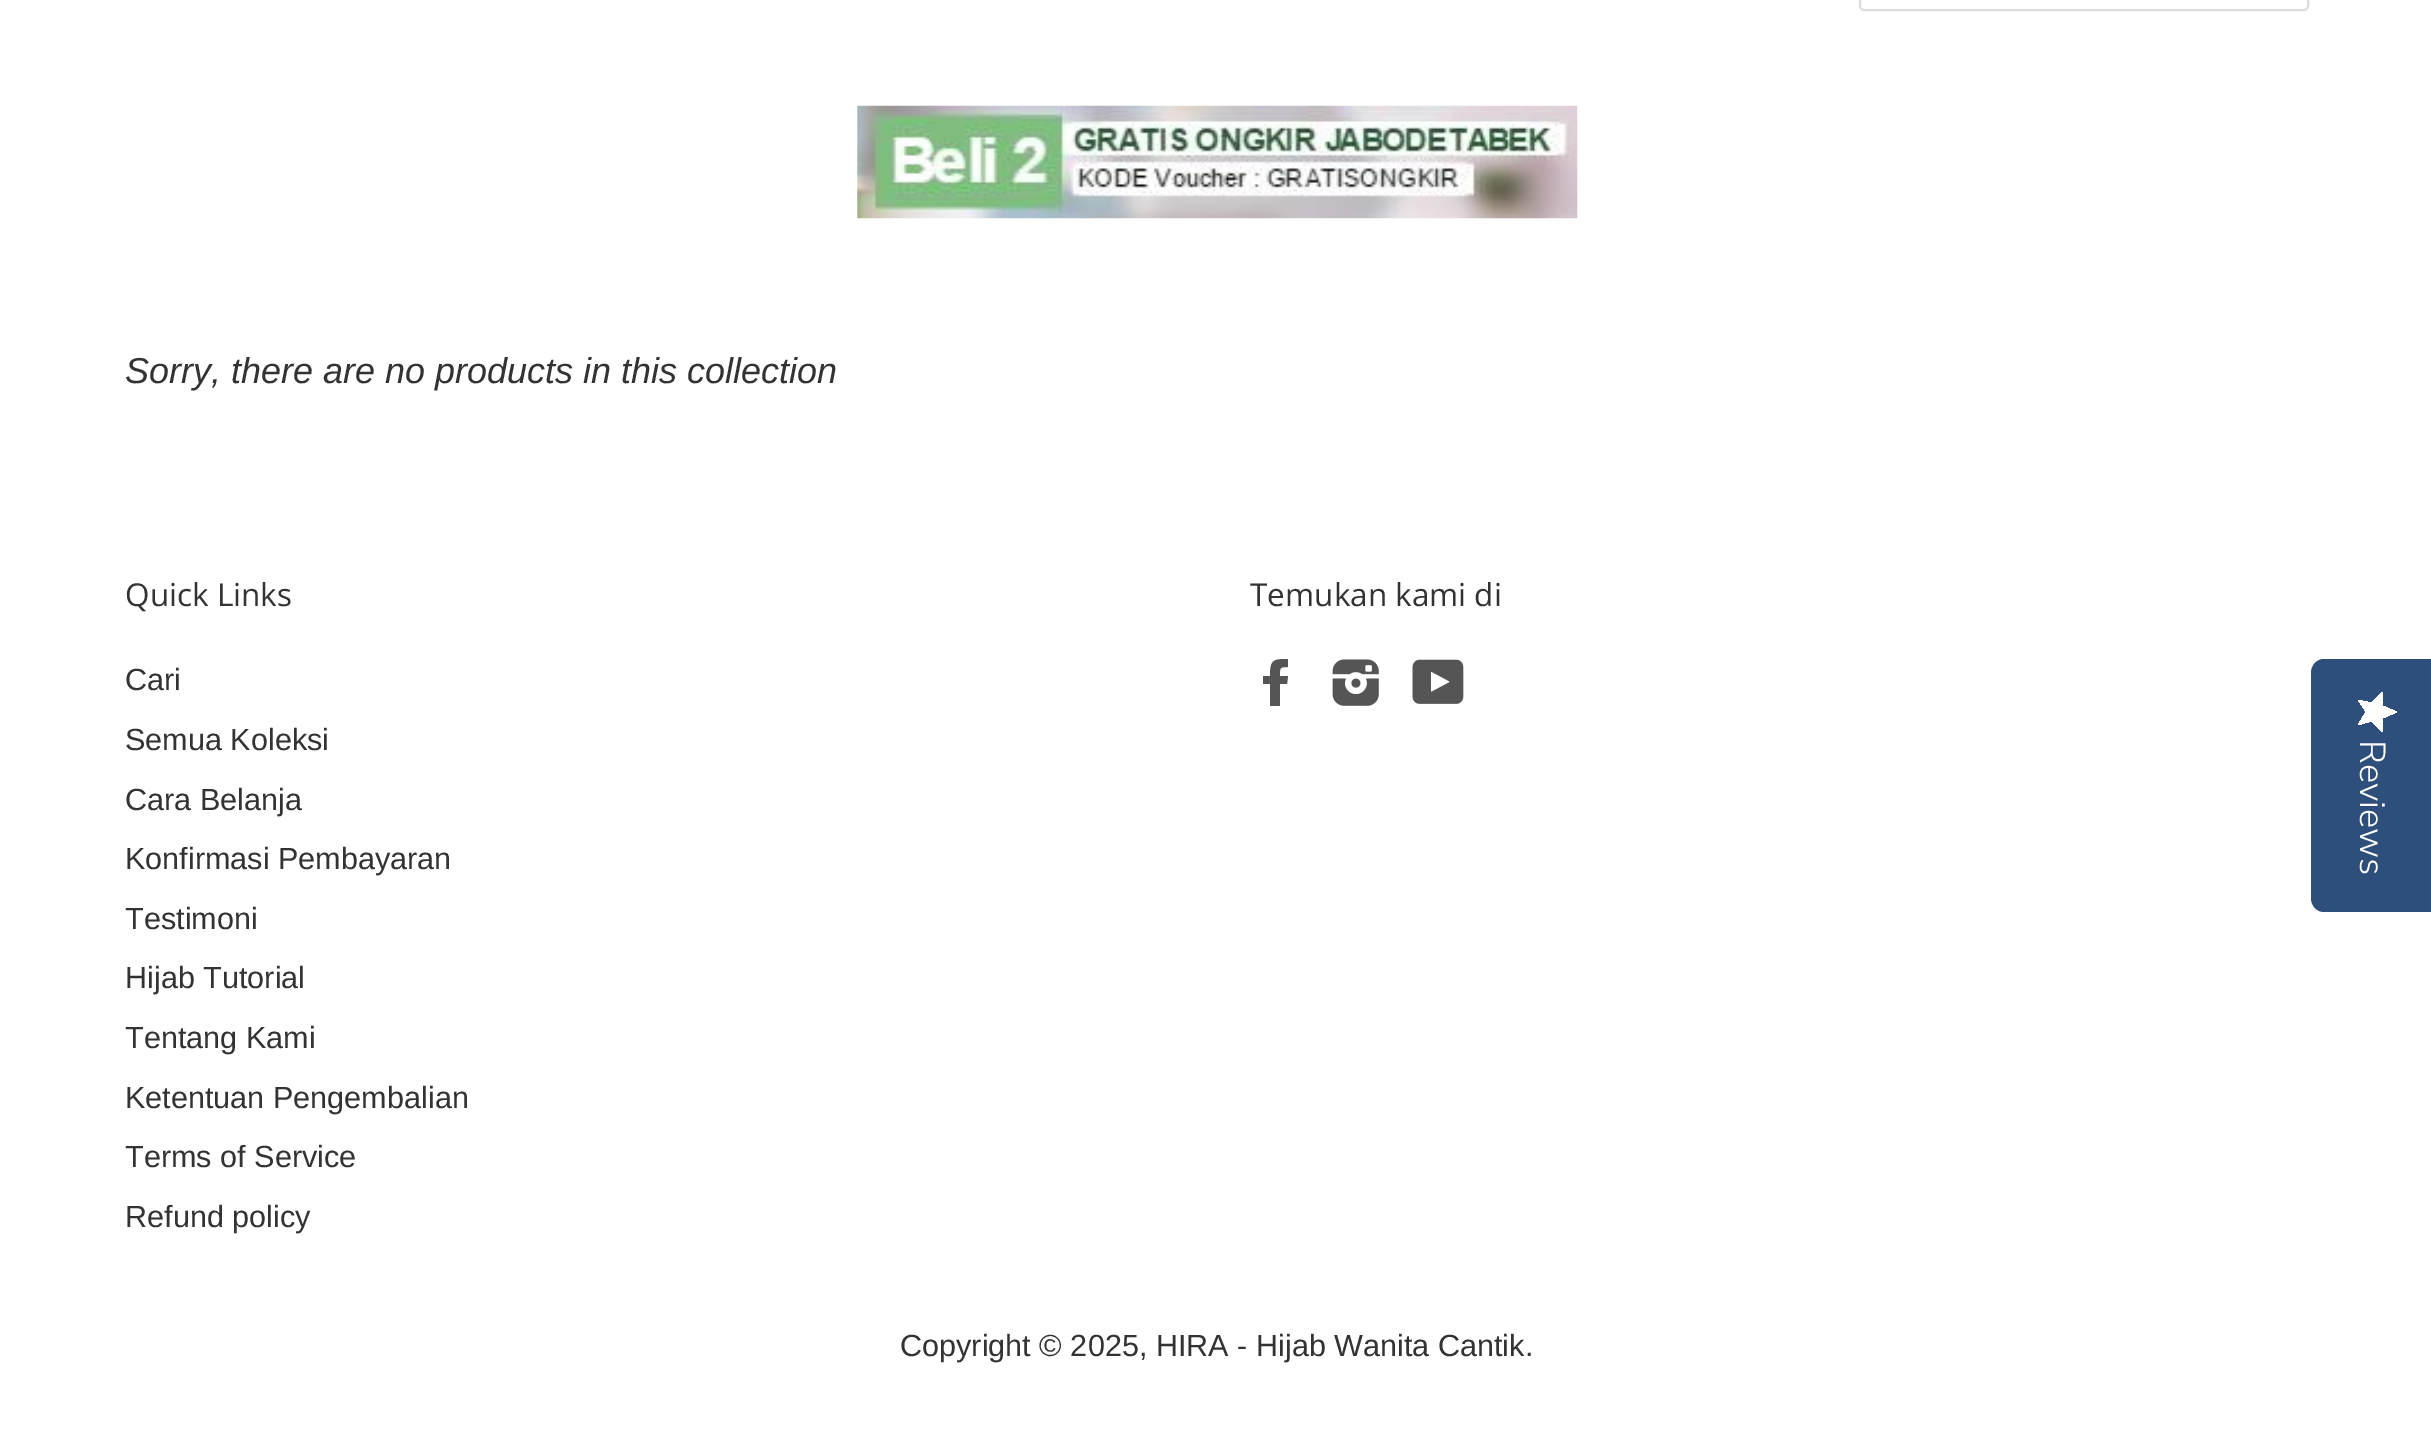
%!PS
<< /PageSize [2431 1439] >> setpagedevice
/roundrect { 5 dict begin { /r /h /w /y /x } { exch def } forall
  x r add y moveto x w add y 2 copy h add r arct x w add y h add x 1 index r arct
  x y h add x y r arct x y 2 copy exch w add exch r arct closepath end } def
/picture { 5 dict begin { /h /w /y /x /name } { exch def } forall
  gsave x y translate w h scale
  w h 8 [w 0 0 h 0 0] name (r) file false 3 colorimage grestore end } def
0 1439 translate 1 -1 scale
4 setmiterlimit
1 setgray
0 0 2431 1439 rectfill
0.867 setgray
2 setlinewidth
1860 -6 448 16 4 roundrect stroke
(img1.rgb) 857 105 721 114 picture
/LiberationSans-Italic [36 0 0 -36 0 0] selectfont
0.2 setgray
125 383 moveto (Sorry, there are no products in this collection) show
/OpenSans-Regular [31.5 0 0 -31.5 0 0] selectfont
125 606 moveto (Quick Links) show
/LiberationSans-Regular [30.6 0 0 -30.6 0 0] selectfont
125 690 moveto (Cari) show
125 750 moveto (Semua Koleksi) show
125 810 moveto (Cara Belanja) show
125 869 moveto (Konfirmasi Pembayaran) show
125 929 moveto (Testimoni) show
125 988 moveto (Hijab Tutorial) show
125 1048 moveto (Tentang Kami) show
125 1108 moveto (Ketentuan Pengembalian) show
125 1167 moveto (Terms of Service) show
125 1227 moveto (Refund policy) show
/OpenSans-Regular [31.5 0 0 -31.5 0 0] selectfont
1250 606 moveto (Temukan kami di) show
0.333 setgray
newpath 1280 706 moveto 1280 684 lineto 1287 684 lineto 1288 676 lineto 1280 676 lineto 1280 668 1279 667 1288 667 curveto 1288 659 lineto 1273 659 1270 660 1270 676 curveto 1263 676 lineto 1263 684 lineto 1270 684 lineto 1270 706 lineto closepath fill
(img2.rgb) 1332 659 47 47 picture
(img3.rgb) 1412 659 52 45 picture
/LiberationSans-Regular [30.6 0 0 -30.6 0 0] selectfont
0.2 setgray
900 1356 moveto (Copyright © 2025, HIRA - Hijab Wanita Cantik.) show
0.18 0.31 0.486 setrgbcolor
newpath 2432 659 moveto 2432 912 lineto 2324 912 lineto 2317 912 2311 906 2311 898 curveto 2311 673 lineto 2311 665 2317 659 2324 659 curveto closepath fill
gsave newpath 2366 712 moveto 2358 725 lineto 2372 721 lineto 2382 732 lineto 2383 718 lineto 2397 712 lineto 2383 706 lineto 2382 692 lineto 2372 703 lineto 2358 700 lineto closepath clip newpath
<< /ShadingType 2 /ColorSpace /DeviceRGB /Coords [2397 692 2397 732] /Extend [true true] /Function << /FunctionType 2 /Domain [0 1] /C0 [1 1 1] /C1 [1 1 1] /N 1 >> >> shfill grestore
/NunitoSans-Light [36 0 0 -36 0 0] selectfont
1 setgray
gsave 2360 740 translate 90 rotate 0 0 moveto (Reviews) show grestore
showpage
